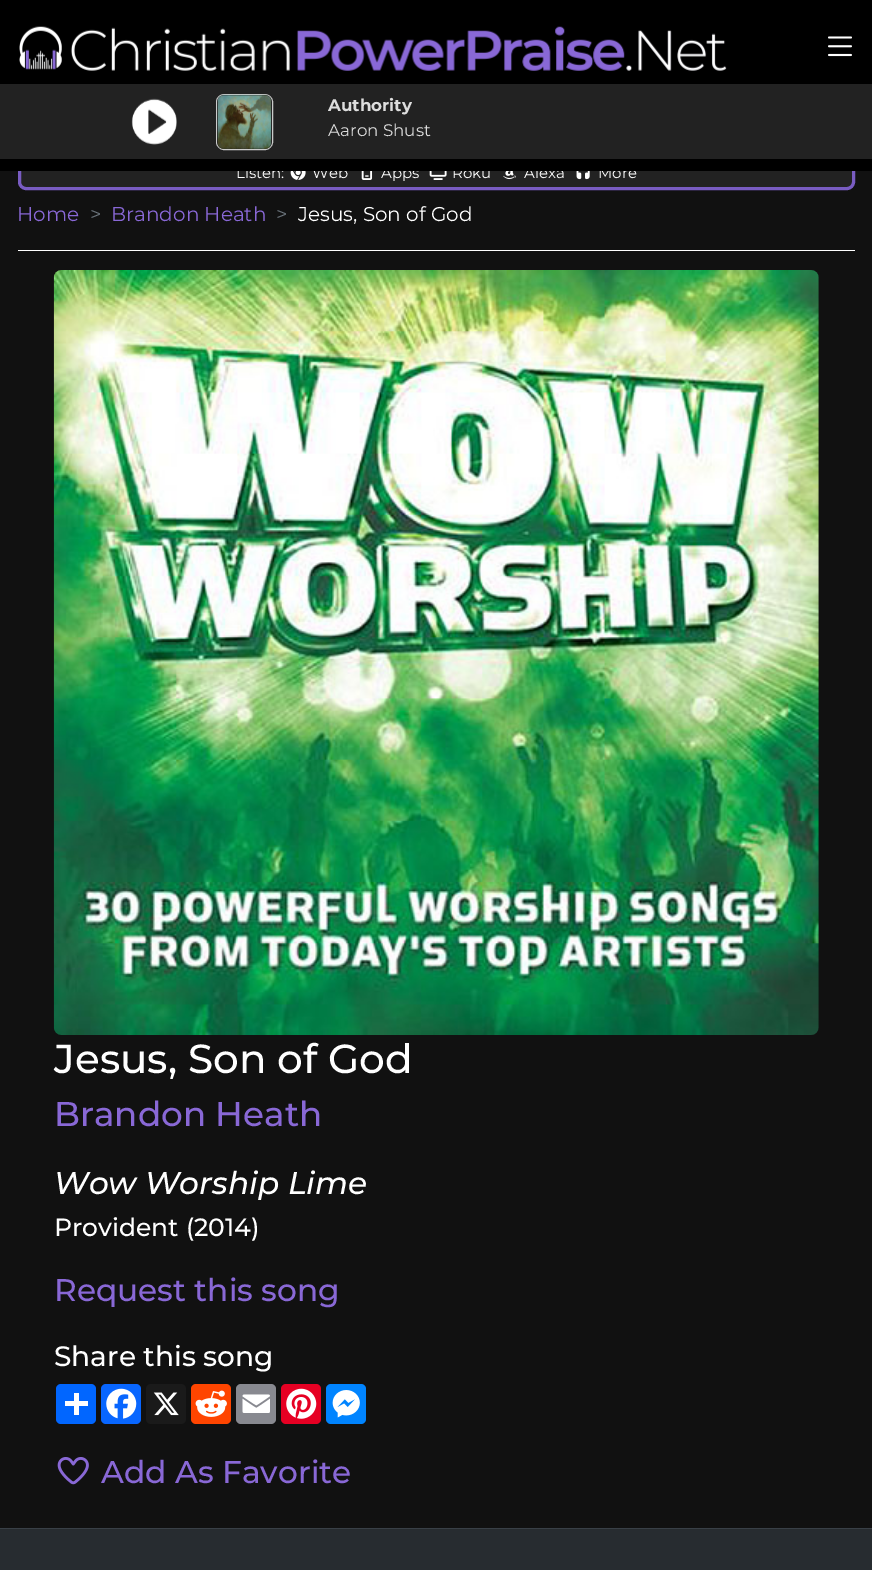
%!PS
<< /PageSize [872 1570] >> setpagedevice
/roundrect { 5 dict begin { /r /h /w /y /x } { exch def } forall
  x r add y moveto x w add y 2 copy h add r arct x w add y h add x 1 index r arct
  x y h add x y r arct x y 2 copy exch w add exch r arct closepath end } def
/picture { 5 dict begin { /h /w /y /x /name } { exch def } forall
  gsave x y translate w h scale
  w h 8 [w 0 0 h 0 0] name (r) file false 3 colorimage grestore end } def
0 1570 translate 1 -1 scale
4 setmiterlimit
0.067 setgray
0 0 872 1570 rectfill
0.133 setgray
19.5 154.5 834 34 6.5 roundrect gsave fill grestore
0.475 0.361 0.761 setrgbcolor
3 setlinewidth
stroke
/Montserrat-Regular [15 0 0 -15 0 0] selectfont
1 setgray
236 178 moveto (Listen:) show
312 178 moveto (Web) show
381 178 moveto (Apps) show
452 178 moveto (Roku) show
524 178 moveto (Alexa) show
598 178 moveto (More) show
0 setgray
0 0 872 171 rectfill
(img1.rgb) 19 26 708 45 picture
(img2.rgb) 828 36 24 21 picture
0.133 setgray
0 84 872 75 rectfill
(img3.rgb) 131 98 46 47 picture
0.8 setgray
1 setlinewidth
216.5 94.5 56 55 7.5 roundrect stroke
(img4.rgb) 217 94 55 55 picture
/Montserrat-Bold [16.75 0 0 -16.75 0 0] selectfont
0.867 setgray
328 111 moveto (Authority) show
/Montserrat-Regular [16.75 0 0 -16.75 0 0] selectfont
328 136 moveto (Aaron Shust) show
(img5.rgb) 290 171 16 9 picture
(img6.rgb) 361 171 12 9 picture
(img7.rgb) 429 171 18 9 picture
(img8.rgb) 503 171 13 9 picture
(img9.rgb) 576 171 14 9 picture
/Montserrat-Regular [20 0 0 -20 0 0] selectfont
0.537 0.408 0.839 setrgbcolor
17 221 moveto (Home) show
0.424 0.459 0.49 setrgbcolor
90 221 moveto (>) show
0.537 0.408 0.839 setrgbcolor
111 221 moveto (Brandon Heath) show
0.424 0.459 0.49 setrgbcolor
276 221 moveto (>) show
1 setgray
298 221 moveto (Jesus, Son of God) show
18 250 837 1 rectfill
(img10.rgb) 53 270 766 765 picture
/Montserrat-Medium [40.5 0 0 -40.5 0 0] selectfont
54 1073 moveto (Jesus, Son of God) show
/Montserrat-Medium [34.25 0 0 -34.25 0 0] selectfont
0.537 0.408 0.839 setrgbcolor
54 1126 moveto (Brandon Heath) show
/Montserrat-MediumItalic [31.25 0 0 -31.25 0 0] selectfont
1 setgray
54 1194 moveto (Wow Worship Lime) show
/Montserrat-Medium [25 0 0 -25 0 0] selectfont
54 1236 moveto (Provident \(2014\)) show
/Montserrat-Medium [31.25 0 0 -31.25 0 0] selectfont
0.537 0.408 0.839 setrgbcolor
54 1301 moveto (Request this song) show
/Montserrat-Medium [28 0 0 -28 0 0] selectfont
1 setgray
54 1366 moveto (Share this song) show
0.004 0.4 1 setrgbcolor
56 1384 40 40 5 roundrect fill
1 setgray
74 1393 5 22 rectfill
65 1401 23 5 rectfill
0.031 0.4 1 setrgbcolor
101 1384 40 40 5 roundrect fill
(img11.rgb) 106 1388 31 31 picture
0.102 setgray
146 1384 40 40 5 roundrect fill
(img12.rgb) 153 1392 26 24 picture
1 0.271 0 setrgbcolor
191 1384 40 40 5 roundrect fill
(img13.rgb) 195 1390 32 27 picture
0.533 0.537 0.565 setrgbcolor
236 1384 40 40 5 roundrect fill
(img14.rgb) 242 1394 28 19 picture
0.902 0 0.137 setrgbcolor
281 1384 40 40 5 roundrect fill
(img15.rgb) 286 1388 31 31 picture
0 0.518 1 setrgbcolor
326 1384 40 40 5 roundrect fill
(img16.rgb) 332 1390 28 28 picture
(img17.rgb) 57 1457 32 28 picture
/Montserrat-Medium [31.25 0 0 -31.25 0 0] selectfont
0.537 0.408 0.839 setrgbcolor
101 1483 moveto (Add As Favorite) show
0.153 0.173 0.188 setrgbcolor
0 1529 872 41 rectfill
0.224 0.251 0.278 setrgbcolor
0 1528 872 1 rectfill
showpage
